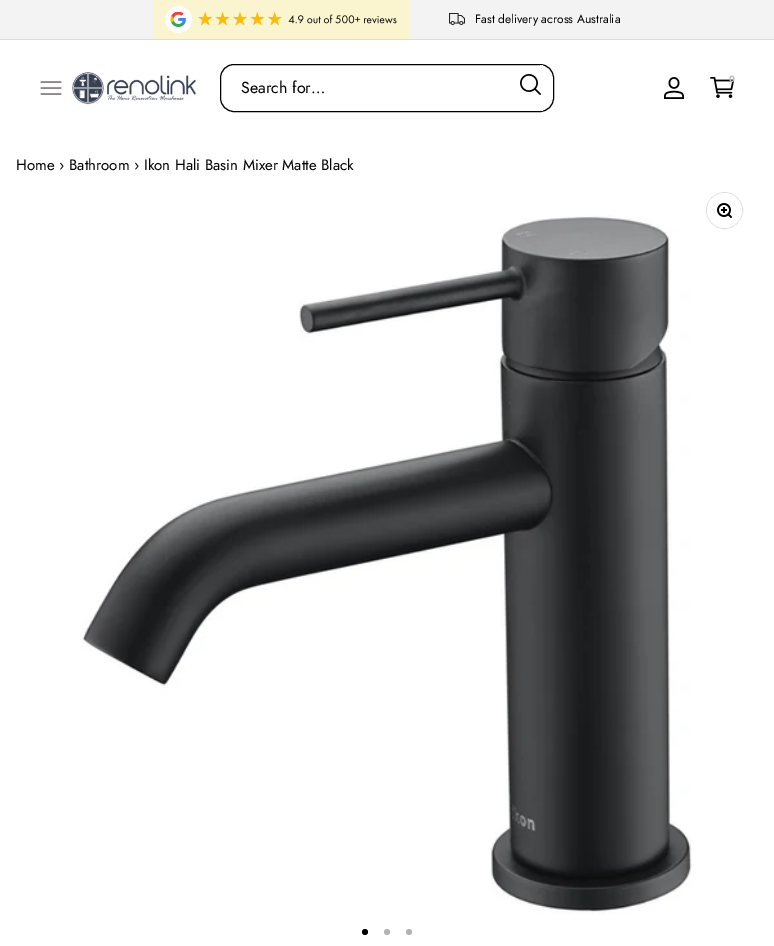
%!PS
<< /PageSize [774 946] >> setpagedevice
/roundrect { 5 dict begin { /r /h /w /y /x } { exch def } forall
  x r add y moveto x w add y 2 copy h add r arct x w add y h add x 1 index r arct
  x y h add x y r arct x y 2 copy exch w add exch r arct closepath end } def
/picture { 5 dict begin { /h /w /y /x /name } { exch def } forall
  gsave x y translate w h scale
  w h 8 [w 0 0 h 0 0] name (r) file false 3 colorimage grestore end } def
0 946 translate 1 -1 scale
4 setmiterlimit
1 setgray
0 0 774 946 rectfill
0.953 setgray
0 0 774 39 rectfill
(img1.rgb) 153 0 256 39 picture
(img2.rgb) 449 13 16 12 picture
/Jost-Regular [12 0 0 -12 0 0] selectfont
0 setgray
475 23 moveto (Fast delivery across Australia) show
0.867 setgray
0 39 774 1 rectfill
(img3.rgb) 40 81 22 14 picture
(img4.rgb) 72 72 124 33 picture
(img5.rgb) 664 77 20 22 picture
(img6.rgb) 710 77 24 21 picture
/Jost-Bold [9 0 0 -9 0 0] selectfont
0.733 setgray
729 82 moveto (0) show
0 setgray
220.5 64.5 333 47 13.5 roundrect stroke
/Jost-Regular [16 0 0 -16 0 0] selectfont
241 93 moveto (Search for…) show
1 setgray
540 65 3 46 rectfill
(img7.rgb) 520 74 21 21 picture
/Jost-Regular [15 0 0 -15 0 0] selectfont
0 setgray
16 170 moveto (Home) show
59 170 moveto (›) show
69 170 moveto (Bathroom) show
134 170 moveto (›) show
144 170 moveto (Ikon Hali Basin Mixer Matte Black) show
0.878 setgray
newpath 724.5 210.5 18 0 360 arc closepath stroke
1 setgray
newpath 724.5 210.5 17.5 0 360 arc closepath fill
(img8.rgb) 717 203 15 15 picture
(img9.rgb) 82 215 610 700 picture
0 setgray
newpath 365 932 3 0 360 arc closepath fill
0.702 setgray
newpath 387 932 3 0 360 arc closepath fill
newpath 409 932 3 0 360 arc closepath fill
showpage
